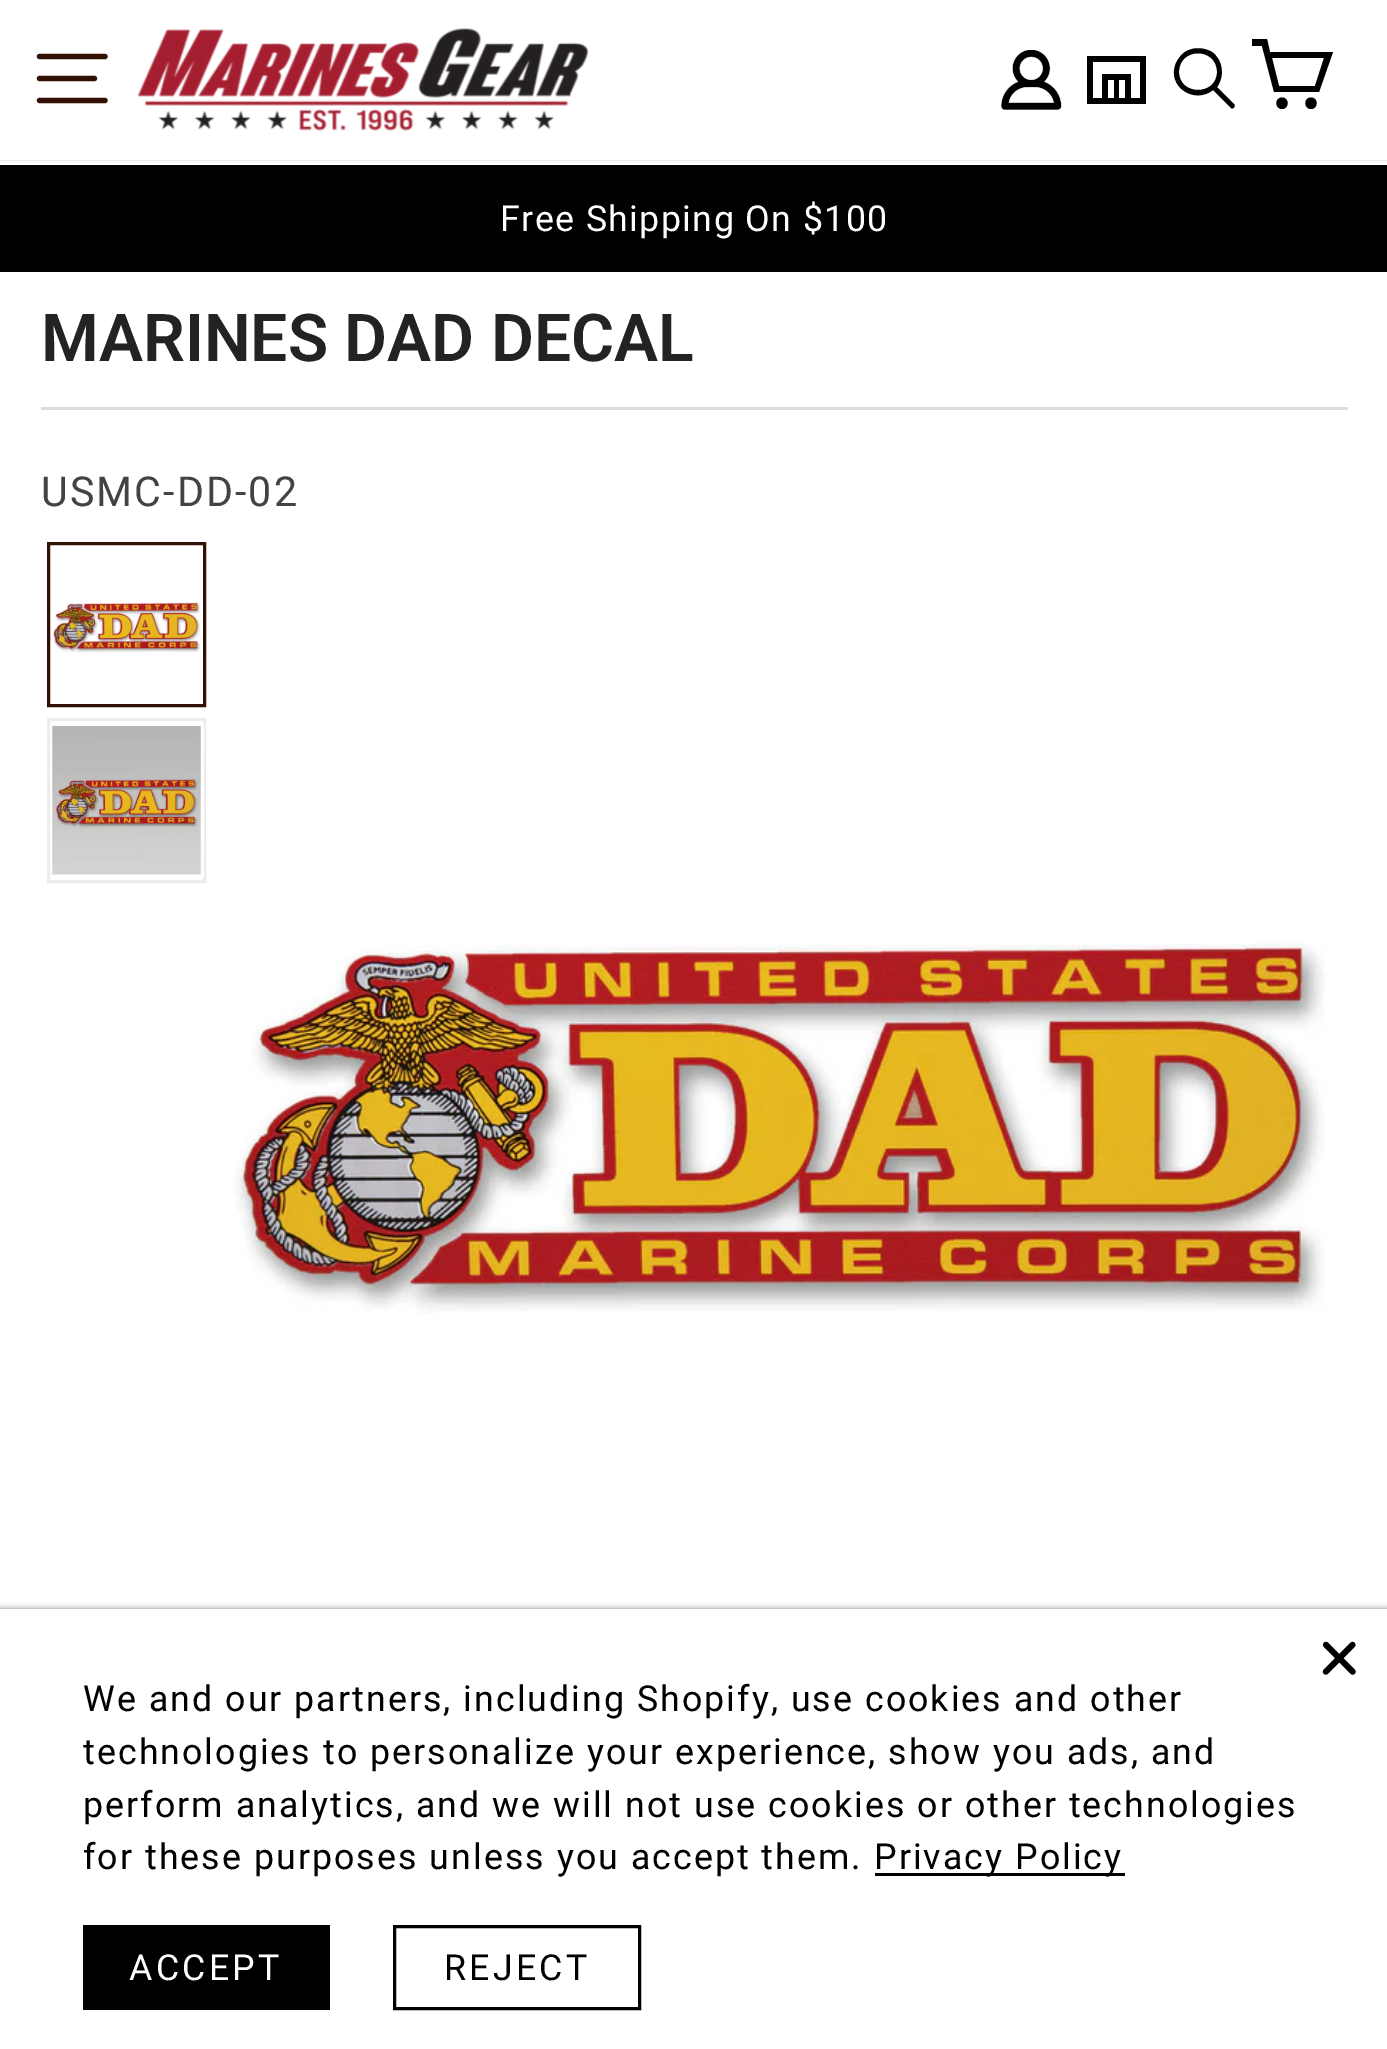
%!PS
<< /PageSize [1387 2049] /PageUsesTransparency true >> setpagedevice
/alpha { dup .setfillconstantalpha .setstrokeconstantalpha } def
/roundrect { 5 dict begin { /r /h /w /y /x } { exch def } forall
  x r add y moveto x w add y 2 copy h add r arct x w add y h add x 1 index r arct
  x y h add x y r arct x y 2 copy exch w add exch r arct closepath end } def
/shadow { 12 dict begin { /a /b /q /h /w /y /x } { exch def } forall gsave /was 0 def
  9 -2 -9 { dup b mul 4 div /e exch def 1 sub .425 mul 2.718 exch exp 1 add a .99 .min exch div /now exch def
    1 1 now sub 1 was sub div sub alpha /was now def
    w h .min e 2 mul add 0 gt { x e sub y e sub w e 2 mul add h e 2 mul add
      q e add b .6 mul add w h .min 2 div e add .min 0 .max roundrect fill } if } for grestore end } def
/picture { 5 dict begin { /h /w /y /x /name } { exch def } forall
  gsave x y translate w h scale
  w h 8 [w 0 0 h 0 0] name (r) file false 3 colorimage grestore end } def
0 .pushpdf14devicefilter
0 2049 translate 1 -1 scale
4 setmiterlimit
1 setgray
0 0 1387 2049 rectfill
0 setgray
0 165 1387 107 rectfill
0 0 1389 160 0 1.5 0.2 shadow
1 setgray
0 0 1387 160 rectfill
(img1.rgb) 137 28 452 103 picture
0.196 0.063 0.016 setrgbcolor
5.2 setlinewidth
1 setlinecap
1 setlinejoin
newpath 39.5 56.5 moveto 105 56.5 lineto 39.5 78.5 moveto 94.5 78.5 lineto 39.5 100.5 moveto 105 100.5 lineto stroke
(img2.rgb) 1001 50 61 60 picture
0 setgray
newpath 1146 104 moveto 1146 56 lineto 1087 56 lineto 1087 104 lineto closepath 1140 62 moveto 1093 62 lineto 1093 98 lineto 1102 98 lineto 1102 74 lineto 1131 74 lineto 1131 98 lineto 1140 98 lineto closepath 1114 80 moveto 1108 80 lineto 1108 98 lineto 1114 98 lineto closepath 1119 98 moveto 1125 98 lineto 1125 80 lineto 1119 80 lineto closepath eofill
newpath 1234 104 moveto 1217 87 lineto 1225 76 1223 60 1212 52 curveto 1205 48 1196 47 1189 50 curveto 1183 52 1179 57 1176 63 curveto 1166 86 1194 105 1213 90 curveto 1231 108 lineto 1233 110 1236 106 1234 104 curveto closepath 1179 72 moveto 1179 47 1217 47 1217 72 curveto 1217 96 1179 96 1179 72 curveto closepath fill
newpath 1319 92 moveto 1274 92 lineto 1262 46 lineto 1252 46 lineto 1252 39 lineto 1267 39 lineto 1270 52 lineto 1333 52 lineto closepath 1279 86 moveto 1315 86 lineto 1324 58 lineto 1272 58 lineto closepath fill
newpath 1282 109 moveto 1289.5 109 1289.5 97.5 1282 97.5 curveto 1274.5 97.5 1274.5 109 1282 109 curveto closepath 1311 109 moveto 1318.5 109 1318.5 97.5 1311 97.5 curveto 1303.5 97.5 1303.5 109 1311 109 curveto closepath fill
/Roboto-Regular [35.75 0 0 -35.75 0 0] selectfont
1 setgray
500 231 moveto 1.4 0 (Free Shipping On $100) ashow
0.867 setgray
41 407 1307 3 rectfill
/Roboto-SemiBold [66 0 0 -66 0 0] selectfont
0.137 setgray
41 361 moveto (MARINES DAD DECAL) show
/Roboto-Regular [41.25 0 0 -41.25 0 0] selectfont
0.263 setgray
41 506 moveto 2.05 0 (USMC-DD-02) ashow
(img3.rgb) 52 602 149 51 picture
0.196 0.063 0.016 setrgbcolor
3 setlinewidth
0 setlinecap
0 setlinejoin
48.5 543.5 156 162 rectstroke
0.929 setgray
48.5 719.5 156 162 rectstroke
1 setgray
203 723 1 154 rectfill
(img4.rgb) 52 726 149 149 picture
(img5.rgb) 233 943 1092 371 picture
0 setgray
0 1609 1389 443 0 3 0.5 shadow
1 setgray
0 1609 1387 440 rectfill
(img6.rgb) 1322 1641 34 34 picture
/Roboto-Regular [35.75 0 0 -35.75 0 0] selectfont
0 setgray
83 1711 moveto 2.05 0 (We and our partners, including Shopify, use cookies and other) ashow
gsave
83 1672 1223 212 rectclip
83 1764 moveto 2.05 0 (technologies to personalize your experience, show you ads, and) ashow
grestore
83 1817 moveto 2.05 0 (perform analytics, and we will not use cookies or other technologies) ashow
83 1869 moveto 2.05 0 (for these purposes unless you accept them.) ashow
875 1873 250 3 rectfill
874 1869 moveto 2.05 0 (Privacy Policy) ashow
83 1925 247 85 rectfill
1 setgray
129 1980 moveto 3.25 0 (ACCEPT) ashow
0 setgray
394.5 1926.5 245 82 rectstroke
444 1980 moveto 3.25 0 (REJECT) ashow
.poppdf14devicefilter showpage
